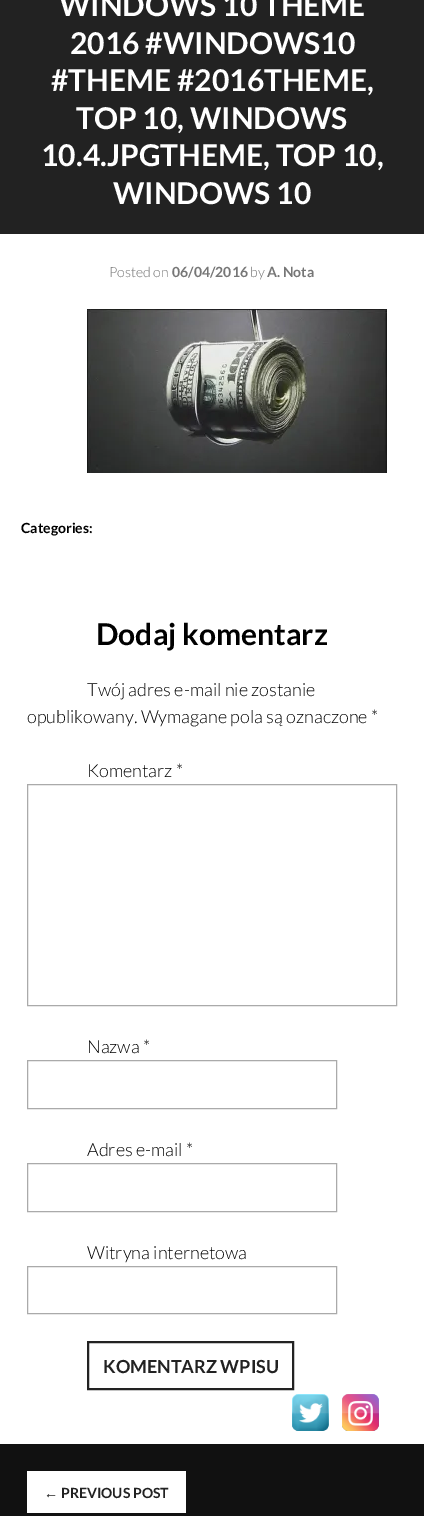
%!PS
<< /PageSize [424 1516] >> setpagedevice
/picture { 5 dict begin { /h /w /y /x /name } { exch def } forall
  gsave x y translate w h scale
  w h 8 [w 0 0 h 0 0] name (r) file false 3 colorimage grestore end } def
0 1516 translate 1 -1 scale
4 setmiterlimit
1 setgray
0 0 424 1516 rectfill
0.133 setgray
0 0 424 234 rectfill
/Lato-Bold [30 0 0 -30 0 0] selectfont
1 setgray
59 16 moveto (WINDOWS 10 THEME) show
70 54 moveto (2016 #WINDOWS10) show
51 91 moveto (#THEME #2016THEME,) show
76 129 moveto (TOP 10, WINDOWS) show
41 166 moveto (10.4.JPGTHEME, TOP 10,) show
113 204 moveto (WINDOWS 10) show
/Lato-Light [14 0 0 -14 0 0] selectfont
0.463 setgray
109 277 moveto (Posted on) show
/Lato-Bold [14 0 0 -14 0 0] selectfont
172 277 moveto (06/04/2016) show
/Lato-Light [14 0 0 -14 0 0] selectfont
250 277 moveto (by) show
/Lato-Bold [14 0 0 -14 0 0] selectfont
267 277 moveto (A. Nota) show
(img1.rgb) 87 309 300 164 picture
0 setgray
21 533 moveto (Categories:) show
/Lato-Bold [30 0 0 -30 0 0] selectfont
96 645 moveto (Dodaj komentarz) show
/Lato-Light [18 0 0 -18 0 0] selectfont
87 696 moveto (Twój adres e-mail nie zostanie) show
27 723 moveto (opublikowany. Wymagane pola są oznaczone *) show
87 777 moveto (Komentarz *) show
0.667 setgray
27.5 784.5 369 221 rectstroke
0 setgray
87 1053 moveto (Nazwa *) show
0.667 setgray
27.5 1060.5 309 48 rectstroke
0 setgray
87 1156 moveto (Adres e-mail *) show
0.667 setgray
27.5 1163.5 309 48 rectstroke
0 setgray
87 1259 moveto (Witryna internetowa) show
0.667 setgray
27.5 1266.5 309 47 rectstroke
0.133 setgray
2 setlinewidth
88 1342 205 47 rectstroke
/Lato-Bold [18 0 0 -18 0 0] selectfont
103 1373 moveto (KOMENTARZ WPISU) show
0.067 setgray
0 1444 424 72 rectfill
1 setgray
27 1471 159 42 rectfill
/LiberationSans-Bold [14 0 0 -14 0 0] selectfont
0.133 setgray
44 1498 moveto (←) show
/Lato-Bold [14 0 0 -14 0 0] selectfont
61 1498 moveto (PREVIOUS POST) show
(img2.rgb) 292 1394 37 37 picture
(img3.rgb) 342 1394 37 37 picture
showpage
